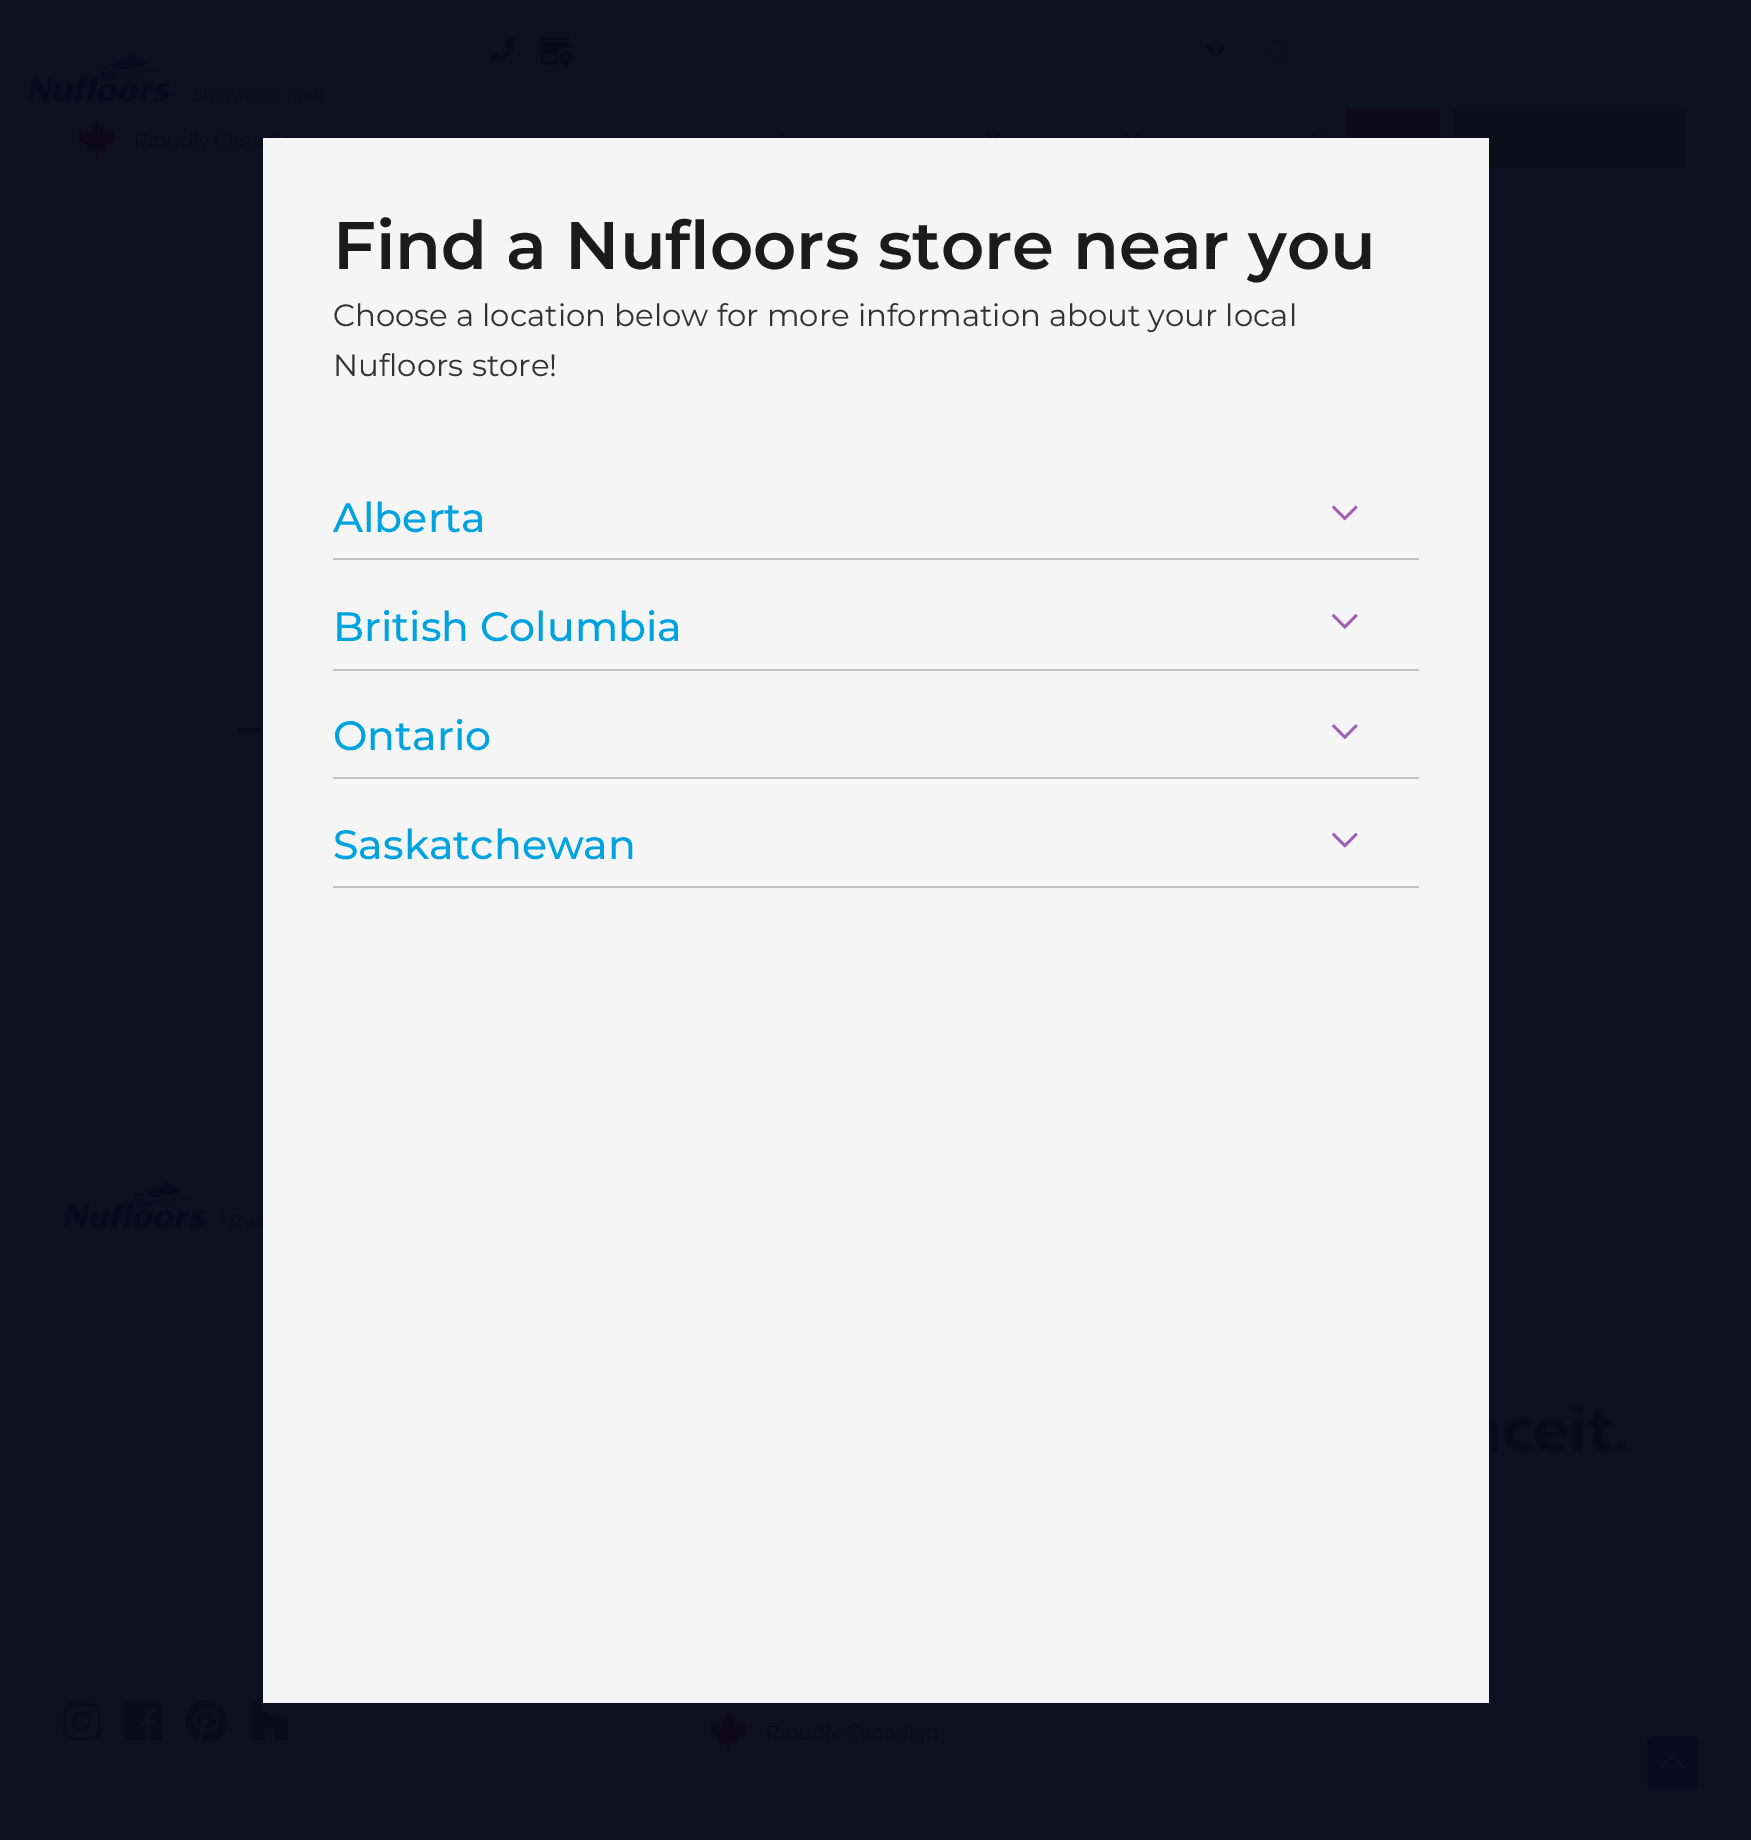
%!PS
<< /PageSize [1751 1840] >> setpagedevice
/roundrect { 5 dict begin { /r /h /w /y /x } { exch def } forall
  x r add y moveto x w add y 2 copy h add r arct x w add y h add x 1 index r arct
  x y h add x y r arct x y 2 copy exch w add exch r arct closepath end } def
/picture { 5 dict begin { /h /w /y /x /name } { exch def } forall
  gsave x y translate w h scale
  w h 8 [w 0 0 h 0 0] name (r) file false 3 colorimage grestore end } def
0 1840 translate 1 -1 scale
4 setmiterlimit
0.055 0.059 0.129 setrgbcolor
0 0 1751 1840 rectfill
(img1.rgb) 26 54 298 48 picture
(img2.rgb) 77 119 228 41 picture
(img3.rgb) 490 37 26 26 picture
(img4.rgb) 539 37 33 31 picture
(img5.rgb) 1206 45 20 12 picture
(img6.rgb) 1267 39 26 26 picture
(img7.rgb) 780 133 14 5 picture
(img8.rgb) 987 133 14 5 picture
(img9.rgb) 1125 133 14 5 picture
(img7.rgb) 1312 133 14 5 picture
0.051 0.039 0.106 setrgbcolor
1346 109 94 29 rectfill
0.051 0.051 0.106 setrgbcolor
1453 109 232 59 rectfill
0.039 0.039 0.114 setrgbcolor
238 728 25 5 rectfill
0.039 0.043 0.11 setrgbcolor
newpath 274 1728 moveto 265 1728 lineto 265 1740.5 lineto 252 1740.5 lineto 252 1702 lineto 261.5 1702 lineto 261.5 1711 lineto 287.5 1718.5 lineto 287.5 1740.5 lineto 274 1740.5 lineto closepath fill
0.961 setgray
263 138 1226 1565 rectfill
/Montserrat-SemiBold [67.2 0 0 -67.2 0 0] selectfont
0.106 setgray
333 269 moveto (Find a Nufloors store near you) show
/Montserrat-Regular [30.8 0 0 -30.8 0 0] selectfont
0.2 setgray
333 326 moveto (Choose a location below for more information about your local) show
333 376 moveto (Nufloors store!) show
0.769 setgray
333 558 1086 2 rectfill
/Montserrat-Medium [41 0 0 -41 0 0] selectfont
0 0.639 0.878 setrgbcolor
333 532 moveto (Alberta) show
(img10.rgb) 1332 505 26 16 picture
0.769 setgray
333 669 1086 2 rectfill
0 0.639 0.878 setrgbcolor
333 641 moveto (British Columbia) show
(img11.rgb) 1332 614 26 15 picture
0.769 setgray
333 777 1086 2 rectfill
0 0.639 0.878 setrgbcolor
333 750 moveto (Ontario) show
(img12.rgb) 1332 724 26 15 picture
0.769 setgray
333 886 1086 2 rectfill
0 0.639 0.878 setrgbcolor
333 859 moveto (Saskatchewan) show
(img13.rgb) 1332 832 26 16 picture
(img14.rgb) 63 1182 200 46 picture
(img15.rgb) 63 1702 39 39 picture
(img16.rgb) 124 1702 39 39 picture
(img17.rgb) 185 1700 43 43 picture
(img18.rgb) 709 1712 228 41 picture
(img19.rgb) 1489 1402 139 52 picture
0.039 0.043 0.118 setrgbcolor
1647 1736 52 53 7 roundrect fill
(img20.rgb) 1659 1753 27 16 picture
showpage
